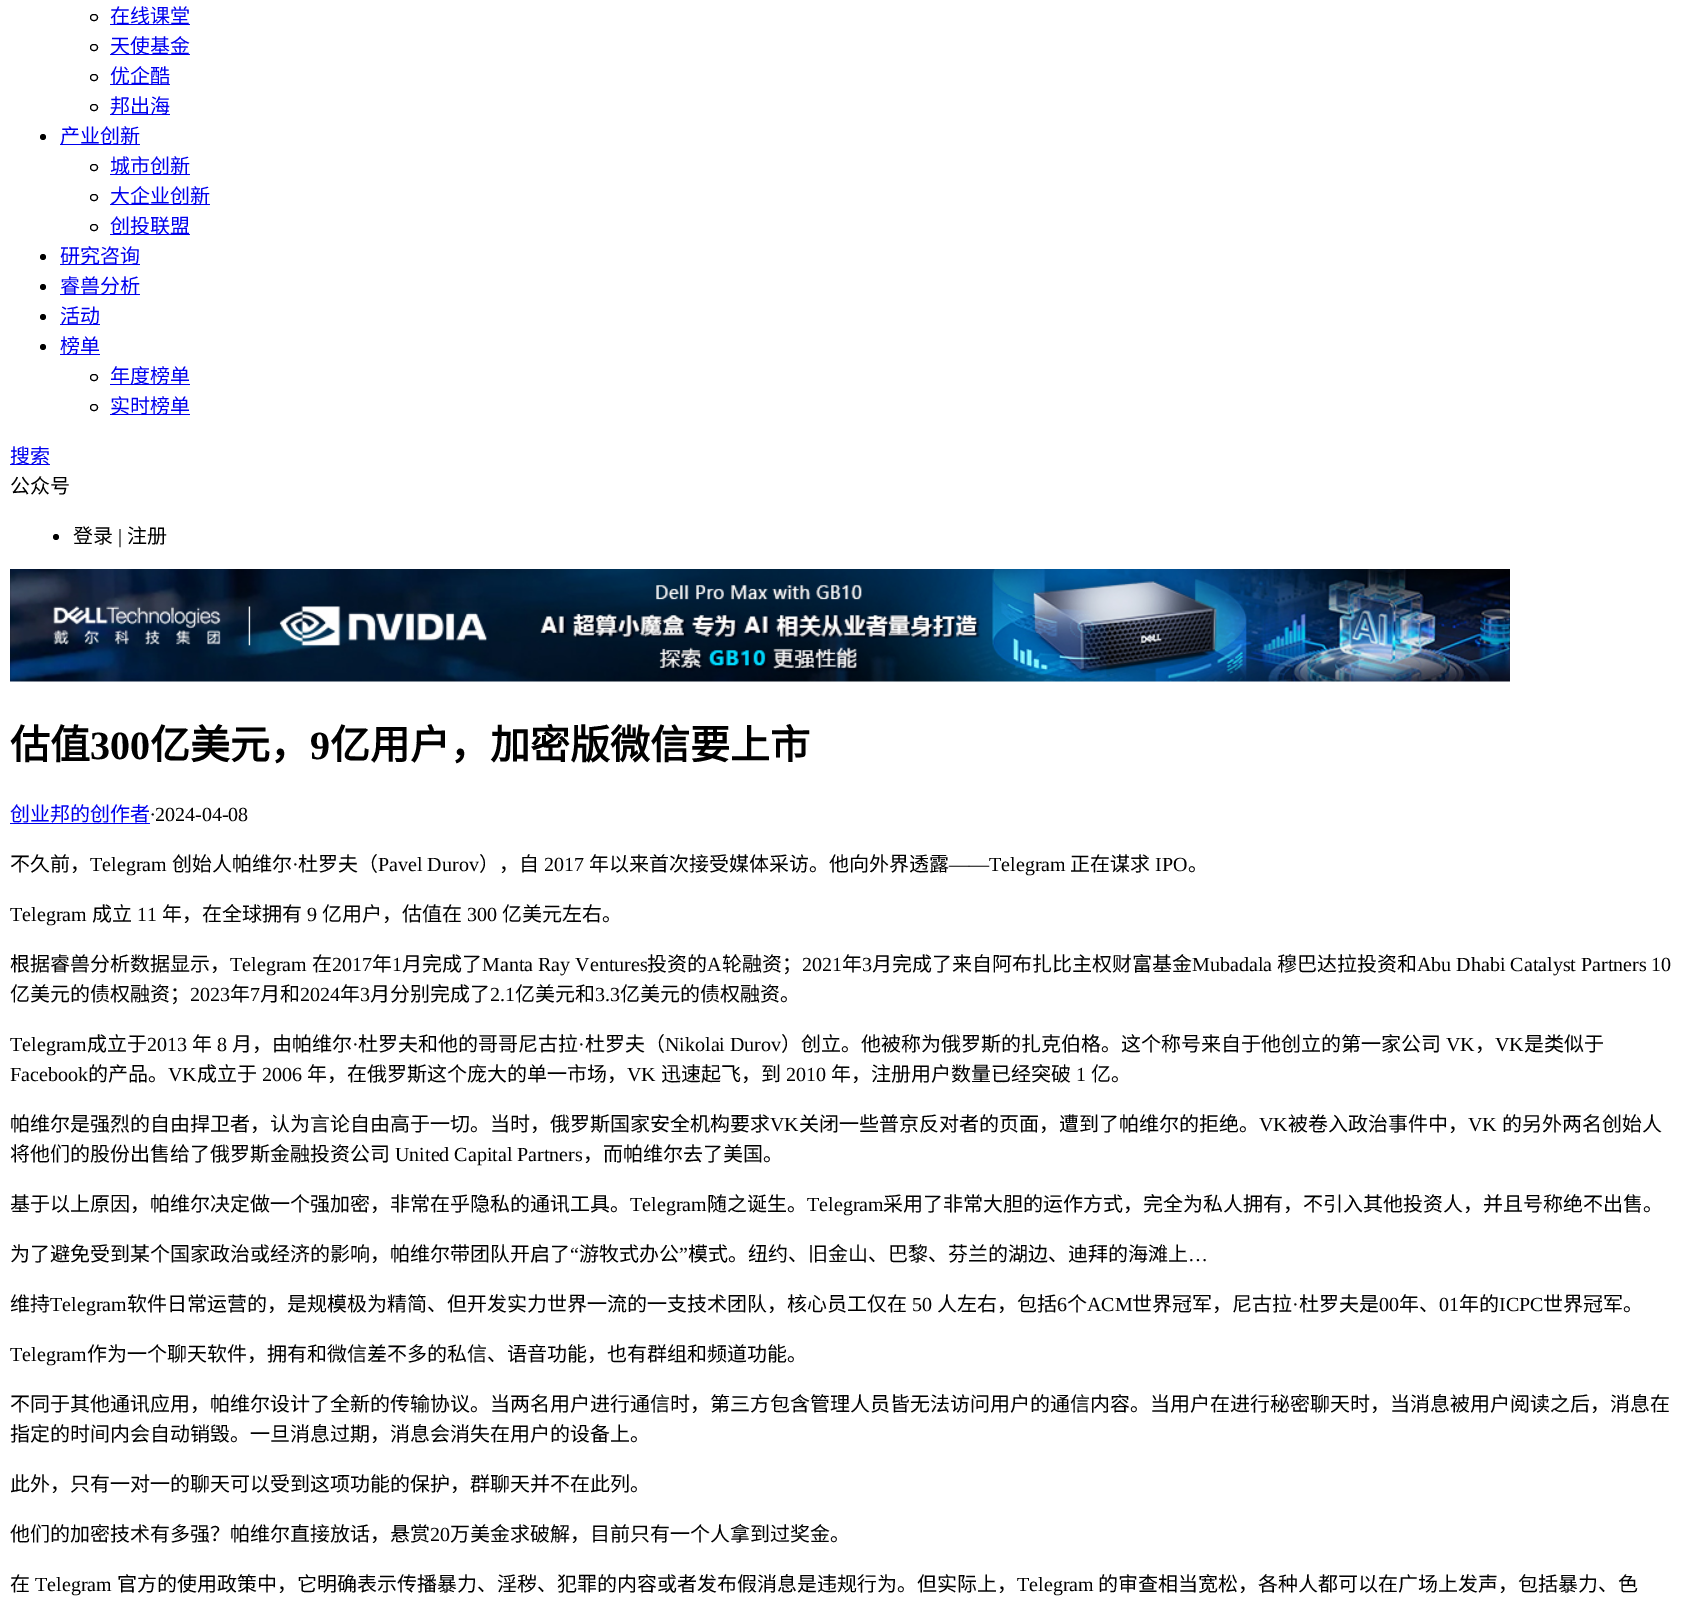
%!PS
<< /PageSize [1687 1606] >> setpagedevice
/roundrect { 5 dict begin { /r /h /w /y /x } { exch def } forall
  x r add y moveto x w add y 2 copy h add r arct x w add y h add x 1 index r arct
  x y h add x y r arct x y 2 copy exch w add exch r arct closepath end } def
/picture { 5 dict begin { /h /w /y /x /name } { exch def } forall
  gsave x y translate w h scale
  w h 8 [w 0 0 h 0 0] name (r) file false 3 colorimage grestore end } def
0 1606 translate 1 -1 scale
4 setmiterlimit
1 setgray
0 0 1687 1606 rectfill
0 setgray
90.5 14.5 7 6 3 roundrect stroke
0 0 0.933 setrgbcolor
110 24 80 1 rectfill
/NotoSansCJKSC-Regular [20 0 0 -20 0 0] selectfont
110 23 moveto (在线课堂) show
0 setgray
90.5 44.5 7 6 3 roundrect stroke
0 0 0.933 setrgbcolor
110 54 80 1 rectfill
110 53 moveto (天使基金) show
0 setgray
90.5 74.5 7 6 3 roundrect stroke
0 0 0.933 setrgbcolor
110 84 60 1 rectfill
110 83 moveto (优企酷) show
0 setgray
90.5 104.5 7 6 3 roundrect stroke
0 0 0.933 setrgbcolor
110 114 60 1 rectfill
110 113 moveto (邦出海) show
0 setgray
newpath 43 137 3 0 360 arc closepath fill
0 0 0.933 setrgbcolor
60 144 80 1 rectfill
60 143 moveto (产业创新) show
0 setgray
90.5 164.5 7 6 3 roundrect stroke
0 0 0.933 setrgbcolor
110 174 80 1 rectfill
110 173 moveto (城市创新) show
0 setgray
90.5 194.5 7 6 3 roundrect stroke
0 0 0.933 setrgbcolor
110 204 100 1 rectfill
110 203 moveto (大企业创新) show
0 setgray
90.5 224.5 7 6 3 roundrect stroke
0 0 0.933 setrgbcolor
110 234 80 1 rectfill
110 233 moveto (创投联盟) show
0 setgray
newpath 43 257 3 0 360 arc closepath fill
0 0 0.933 setrgbcolor
60 264 80 1 rectfill
60 263 moveto (研究咨询) show
0 setgray
newpath 43 287 3 0 360 arc closepath fill
0 0 0.933 setrgbcolor
60 294 80 1 rectfill
60 293 moveto (睿兽分析) show
0 setgray
newpath 43 317 3 0 360 arc closepath fill
0 0 0.933 setrgbcolor
60 324 40 1 rectfill
60 323 moveto (活动) show
0 setgray
newpath 43 347 3 0 360 arc closepath fill
0 0 0.933 setrgbcolor
60 354 40 1 rectfill
60 353 moveto (榜单) show
0 setgray
90.5 374.5 7 6 3 roundrect stroke
0 0 0.933 setrgbcolor
110 384 80 1 rectfill
110 383 moveto (年度榜单) show
0 setgray
90.5 404.5 7 6 3 roundrect stroke
0 0 0.933 setrgbcolor
110 414 80 1 rectfill
110 413 moveto (实时榜单) show
10 464 40 1 rectfill
10 463 moveto (搜索) show
0 setgray
10 493 moveto (公众号) show
newpath 56 537 3 0 360 arc closepath fill
73 543 moveto (登录) show
/LiberationSerif-Regular [20 0 0 -20 0 0] selectfont
118 543 moveto (|) show
/NotoSansCJKSC-Regular [20 0 0 -20 0 0] selectfont
127 543 moveto (注册) show
(img1.rgb) 10 569 1500 113 picture
/NotoSansCJKSC-Bold [40 0 0 -40 0 0] selectfont
10 759 moveto (估值) show
/LiberationSerif-Bold [40 0 0 -40 0 0] selectfont
90 759 moveto (300) show
/NotoSansCJKSC-Bold [40 0 0 -40 0 0] selectfont
150 759 moveto (亿美元，) show
/LiberationSerif-Bold [40 0 0 -40 0 0] selectfont
310 759 moveto (9) show
/NotoSansCJKSC-Bold [40 0 0 -40 0 0] selectfont
330 759 moveto (亿用户，加密版微信要上市) show
/NotoSansCJKSC-Regular [20 0 0 -20 0 0] selectfont
0 0 0.933 setrgbcolor
10 821 moveto (创业邦的创作者) show
10 823 140 1 rectfill
/LiberationSerif-Italic [20 0 0 -20 0 0] selectfont
0 setgray
150 821 moveto (·) show
/LiberationSerif-Regular [20 0 0 -20 0 0] selectfont
155 821 moveto (2024-04-08) show
/NotoSansCJKSC-Regular [20 0 0 -20 0 0] selectfont
10 871 moveto (不久前，) show
/LiberationSerif-Regular [20 0 0 -20 0 0] selectfont
90 871 moveto (Telegram) show
/NotoSansCJKSC-Regular [20 0 0 -20 0 0] selectfont
172 871 moveto (创始人帕维尔) show
/LiberationSerif-Regular [20 0 0 -20 0 0] selectfont
292 871 moveto (·) show
/NotoSansCJKSC-Regular [20 0 0 -20 0 0] selectfont
298 871 moveto (杜罗夫（) show
/LiberationSerif-Regular [20 0 0 -20 0 0] selectfont
378 871 moveto (Pavel Durov) show
/NotoSansCJKSC-Regular [20 0 0 -20 0 0] selectfont
479 871 moveto (），自) show
/LiberationSerif-Regular [20 0 0 -20 0 0] selectfont
544 871 moveto (2017) show
/NotoSansCJKSC-Regular [20 0 0 -20 0 0] selectfont
589 871 moveto (年以来首次接受媒体采访。他向外界透露) show
/LiberationSerif-Regular [20 0 0 -20 0 0] selectfont
949 871 moveto (——Telegram) show
/NotoSansCJKSC-Regular [20 0 0 -20 0 0] selectfont
1070 871 moveto (正在谋求) show
/LiberationSerif-Regular [20 0 0 -20 0 0] selectfont
1155 871 moveto (IPO) show
/NotoSansCJKSC-Regular [20 0 0 -20 0 0] selectfont
1188 871 moveto (。) show
/LiberationSerif-Regular [20 0 0 -20 0 0] selectfont
10 921 moveto (Telegram) show
/NotoSansCJKSC-Regular [20 0 0 -20 0 0] selectfont
92 921 moveto (成立) show
/LiberationSerif-Regular [20 0 0 -20 0 0] selectfont
137 921 moveto (11) show
/NotoSansCJKSC-Regular [20 0 0 -20 0 0] selectfont
162 921 moveto (年，在全球拥有) show
/LiberationSerif-Regular [20 0 0 -20 0 0] selectfont
307 921 moveto (9) show
/NotoSansCJKSC-Regular [20 0 0 -20 0 0] selectfont
322 921 moveto (亿用户，估值在) show
/LiberationSerif-Regular [20 0 0 -20 0 0] selectfont
467 921 moveto (300) show
/NotoSansCJKSC-Regular [20 0 0 -20 0 0] selectfont
502 921 moveto (亿美元左右。) show
10 971 moveto (根据睿兽分析数据显示，) show
/LiberationSerif-Regular [20 0 0 -20 0 0] selectfont
230 971 moveto (Telegram) show
/NotoSansCJKSC-Regular [20 0 0 -20 0 0] selectfont
312 971 moveto (在) show
/LiberationSerif-Regular [20 0 0 -20 0 0] selectfont
332 971 moveto (2017) show
/NotoSansCJKSC-Regular [20 0 0 -20 0 0] selectfont
372 971 moveto (年) show
/LiberationSerif-Regular [20 0 0 -20 0 0] selectfont
392 971 moveto (1) show
/NotoSansCJKSC-Regular [20 0 0 -20 0 0] selectfont
402 971 moveto (月完成了) show
/LiberationSerif-Regular [20 0 0 -20 0 0] selectfont
482 971 moveto (Manta Ray Ventures) show
/NotoSansCJKSC-Regular [20 0 0 -20 0 0] selectfont
647 971 moveto (投资的) show
/LiberationSerif-Regular [20 0 0 -20 0 0] selectfont
707 971 moveto (A) show
/NotoSansCJKSC-Regular [20 0 0 -20 0 0] selectfont
722 971 moveto (轮融资；) show
/LiberationSerif-Regular [20 0 0 -20 0 0] selectfont
802 971 moveto (2021) show
/NotoSansCJKSC-Regular [20 0 0 -20 0 0] selectfont
842 971 moveto (年) show
/LiberationSerif-Regular [20 0 0 -20 0 0] selectfont
862 971 moveto (3) show
/NotoSansCJKSC-Regular [20 0 0 -20 0 0] selectfont
872 971 moveto (月完成了来自阿布扎比主权财富基金) show
/LiberationSerif-Regular [20 0 0 -20 0 0] selectfont
1192 971 moveto (Mubadala) show
/NotoSansCJKSC-Regular [20 0 0 -20 0 0] selectfont
1277 971 moveto (穆巴达拉投资和) show
/LiberationSerif-Regular [20 0 0 -20 0 0] selectfont
1417 971 moveto (Abu Dhabi Catalyst Partners 10) show
/NotoSansCJKSC-Regular [20 0 0 -20 0 0] selectfont
10 1001 moveto (亿美元的债权融资；) show
/LiberationSerif-Regular [20 0 0 -20 0 0] selectfont
190 1001 moveto (2023) show
/NotoSansCJKSC-Regular [20 0 0 -20 0 0] selectfont
230 1001 moveto (年) show
/LiberationSerif-Regular [20 0 0 -20 0 0] selectfont
250 1001 moveto (7) show
/NotoSansCJKSC-Regular [20 0 0 -20 0 0] selectfont
260 1001 moveto (月和) show
/LiberationSerif-Regular [20 0 0 -20 0 0] selectfont
300 1001 moveto (2024) show
/NotoSansCJKSC-Regular [20 0 0 -20 0 0] selectfont
340 1001 moveto (年) show
/LiberationSerif-Regular [20 0 0 -20 0 0] selectfont
360 1001 moveto (3) show
/NotoSansCJKSC-Regular [20 0 0 -20 0 0] selectfont
370 1001 moveto (月分别完成了) show
/LiberationSerif-Regular [20 0 0 -20 0 0] selectfont
490 1001 moveto (2.1) show
/NotoSansCJKSC-Regular [20 0 0 -20 0 0] selectfont
515 1001 moveto (亿美元和) show
/LiberationSerif-Regular [20 0 0 -20 0 0] selectfont
595 1001 moveto (3.3) show
/NotoSansCJKSC-Regular [20 0 0 -20 0 0] selectfont
620 1001 moveto (亿美元的债权融资。) show
/LiberationSerif-Regular [20 0 0 -20 0 0] selectfont
10 1051 moveto (Telegram) show
/NotoSansCJKSC-Regular [20 0 0 -20 0 0] selectfont
87 1051 moveto (成立于) show
/LiberationSerif-Regular [20 0 0 -20 0 0] selectfont
147 1051 moveto (2013) show
/NotoSansCJKSC-Regular [20 0 0 -20 0 0] selectfont
192 1051 moveto (年) show
/LiberationSerif-Regular [20 0 0 -20 0 0] selectfont
217 1051 moveto (8) show
/NotoSansCJKSC-Regular [20 0 0 -20 0 0] selectfont
232 1051 moveto (月，由帕维尔) show
/LiberationSerif-Regular [20 0 0 -20 0 0] selectfont
352 1051 moveto (·) show
/NotoSansCJKSC-Regular [20 0 0 -20 0 0] selectfont
358 1051 moveto (杜罗夫和他的哥哥尼古拉) show
/LiberationSerif-Regular [20 0 0 -20 0 0] selectfont
578 1051 moveto (·) show
/NotoSansCJKSC-Regular [20 0 0 -20 0 0] selectfont
585 1051 moveto (杜罗夫（) show
/LiberationSerif-Regular [20 0 0 -20 0 0] selectfont
665 1051 moveto (Nikolai Durov) show
/NotoSansCJKSC-Regular [20 0 0 -20 0 0] selectfont
781 1051 moveto (）创立。他被称为俄罗斯的扎克伯格。这个称号来自于他创立的第一家公司) show
/LiberationSerif-Regular [20 0 0 -20 0 0] selectfont
1446 1051 moveto (VK) show
1495 1051 moveto (VK) show
/NotoSansCJKSC-Regular [20 0 0 -20 0 0] selectfont
1524 1051 moveto (是类似于) show
1475 1051 moveto (，) show
/LiberationSerif-Regular [20 0 0 -20 0 0] selectfont
10 1081 moveto (Facebook) show
/NotoSansCJKSC-Regular [20 0 0 -20 0 0] selectfont
88 1081 moveto (的产品。) show
/LiberationSerif-Regular [20 0 0 -20 0 0] selectfont
168 1081 moveto (VK) show
/NotoSansCJKSC-Regular [20 0 0 -20 0 0] selectfont
197 1081 moveto (成立于) show
/LiberationSerif-Regular [20 0 0 -20 0 0] selectfont
262 1081 moveto (2006) show
/NotoSansCJKSC-Regular [20 0 0 -20 0 0] selectfont
307 1081 moveto (年，在俄罗斯这个庞大的单一市场，) show
/LiberationSerif-Regular [20 0 0 -20 0 0] selectfont
627 1081 moveto (VK) show
/NotoSansCJKSC-Regular [20 0 0 -20 0 0] selectfont
661 1081 moveto (迅速起飞，到) show
/LiberationSerif-Regular [20 0 0 -20 0 0] selectfont
786 1081 moveto (2010) show
/NotoSansCJKSC-Regular [20 0 0 -20 0 0] selectfont
831 1081 moveto (年，注册用户数量已经突破) show
/LiberationSerif-Regular [20 0 0 -20 0 0] selectfont
1076 1081 moveto (1) show
/NotoSansCJKSC-Regular [20 0 0 -20 0 0] selectfont
1091 1081 moveto (亿。) show
10 1131 moveto (帕维尔是强烈的自由捍卫者，认为言论自由高于一切。当时，俄罗斯国家安全机构要求) show
/LiberationSerif-Regular [20 0 0 -20 0 0] selectfont
770 1131 moveto (VK) show
/NotoSansCJKSC-Regular [20 0 0 -20 0 0] selectfont
799 1131 moveto (关闭一些普京反对者的页面，遭到了帕维尔的拒绝。) show
/LiberationSerif-Regular [20 0 0 -20 0 0] selectfont
1259 1131 moveto (VK) show
/NotoSansCJKSC-Regular [20 0 0 -20 0 0] selectfont
1288 1131 moveto (被卷入政治事件中，) show
/LiberationSerif-Regular [20 0 0 -20 0 0] selectfont
1468 1131 moveto (VK) show
/NotoSansCJKSC-Regular [20 0 0 -20 0 0] selectfont
1502 1131 moveto (的另外两名创始人) show
10 1161 moveto (将他们的股份出售给了俄罗斯金融投资公司) show
/LiberationSerif-Regular [20 0 0 -20 0 0] selectfont
395 1161 moveto (United Capital Partners) show
/NotoSansCJKSC-Regular [20 0 0 -20 0 0] selectfont
583 1161 moveto (，而帕维尔去了美国。) show
10 1211 moveto (基于以上原因，帕维尔决定做一个强加密，非常在乎隐私的通讯工具。) show
/LiberationSerif-Regular [20 0 0 -20 0 0] selectfont
630 1211 moveto (Telegram) show
/NotoSansCJKSC-Regular [20 0 0 -20 0 0] selectfont
707 1211 moveto (随之诞生。) show
/LiberationSerif-Regular [20 0 0 -20 0 0] selectfont
807 1211 moveto (Telegram) show
/NotoSansCJKSC-Regular [20 0 0 -20 0 0] selectfont
883 1211 moveto (采用了非常大胆的运作方式，完全为私人拥有，不引入其他投资人，并且号称绝不出售。) show
10 1261 moveto (为了避免受到某个国家政治或经济的影响，帕维尔带团队开启了) show
/LiberationSerif-Regular [20 0 0 -20 0 0] selectfont
570 1261 moveto (“) show
/NotoSansCJKSC-Regular [20 0 0 -20 0 0] selectfont
579 1261 moveto (游牧式办公) show
/LiberationSerif-Regular [20 0 0 -20 0 0] selectfont
679 1261 moveto (”) show
/NotoSansCJKSC-Regular [20 0 0 -20 0 0] selectfont
688 1261 moveto (模式。纽约、旧金山、巴黎、芬兰的湖边、迪拜的海滩上) show
/LiberationSerif-Regular [20 0 0 -20 0 0] selectfont
1188 1261 moveto (…) show
/NotoSansCJKSC-Regular [20 0 0 -20 0 0] selectfont
10 1311 moveto (维持) show
/LiberationSerif-Regular [20 0 0 -20 0 0] selectfont
50 1311 moveto (Telegram) show
/NotoSansCJKSC-Regular [20 0 0 -20 0 0] selectfont
127 1311 moveto (软件日常运营的，是规模极为精简、但开发实力世界一流的一支技术团队，核心员工仅在) show
/LiberationSerif-Regular [20 0 0 -20 0 0] selectfont
912 1311 moveto (50) show
/NotoSansCJKSC-Regular [20 0 0 -20 0 0] selectfont
937 1311 moveto (人左右，包括) show
/LiberationSerif-Regular [20 0 0 -20 0 0] selectfont
1057 1311 moveto (6) show
/NotoSansCJKSC-Regular [20 0 0 -20 0 0] selectfont
1067 1311 moveto (个) show
/LiberationSerif-Regular [20 0 0 -20 0 0] selectfont
1087 1311 moveto (ACM) show
/NotoSansCJKSC-Regular [20 0 0 -20 0 0] selectfont
1132 1311 moveto (世界冠军，尼古拉) show
/LiberationSerif-Regular [20 0 0 -20 0 0] selectfont
1292 1311 moveto (·) show
/NotoSansCJKSC-Regular [20 0 0 -20 0 0] selectfont
1299 1311 moveto (杜罗夫是) show
/LiberationSerif-Regular [20 0 0 -20 0 0] selectfont
1379 1311 moveto (00) show
/NotoSansCJKSC-Regular [20 0 0 -20 0 0] selectfont
1399 1311 moveto (年、) show
/LiberationSerif-Regular [20 0 0 -20 0 0] selectfont
1439 1311 moveto (01) show
/NotoSansCJKSC-Regular [20 0 0 -20 0 0] selectfont
1459 1311 moveto (年的) show
/LiberationSerif-Regular [20 0 0 -20 0 0] selectfont
1499 1311 moveto (ICPC) show
/NotoSansCJKSC-Regular [20 0 0 -20 0 0] selectfont
1543 1311 moveto (世界冠军。) show
/LiberationSerif-Regular [20 0 0 -20 0 0] selectfont
10 1361 moveto (Telegram) show
/NotoSansCJKSC-Regular [20 0 0 -20 0 0] selectfont
87 1361 moveto (作为一个聊天软件，拥有和微信差不多的私信、语音功能，也有群组和频道功能。) show
10 1411 moveto (不同于其他通讯应用，帕维尔设计了全新的传输协议。当两名用户进行通信时，第三方包含管理人员皆无法访问用户的通信内容。当用户在进行秘密聊天时，当消息被用户阅读之后，消息在) show
10 1441 moveto (指定的时间内会自动销毁。一旦消息过期，消息会消失在用户的设备上。) show
10 1491 moveto (此外，只有一对一的聊天可以受到这项功能的保护，群聊天并不在此列。) show
10 1541 moveto (他们的加密技术有多强？帕维尔直接放话，悬赏) show
/LiberationSerif-Regular [20 0 0 -20 0 0] selectfont
430 1541 moveto (20) show
/NotoSansCJKSC-Regular [20 0 0 -20 0 0] selectfont
450 1541 moveto (万美金求破解，目前只有一个人拿到过奖金。) show
10 1591 moveto (在) show
/LiberationSerif-Regular [20 0 0 -20 0 0] selectfont
35 1591 moveto (Telegram) show
/NotoSansCJKSC-Regular [20 0 0 -20 0 0] selectfont
117 1591 moveto (官方的使用政策中，它明确表示传播暴力、淫秽、犯罪的内容或者发布假消息是违规行为。但实际上，) show
/LiberationSerif-Regular [20 0 0 -20 0 0] selectfont
1017 1591 moveto (Telegram) show
/NotoSansCJKSC-Regular [20 0 0 -20 0 0] selectfont
1098 1591 moveto (的审查相当宽松，各种人都可以在广场上发声，包括暴力、色) show
showpage
